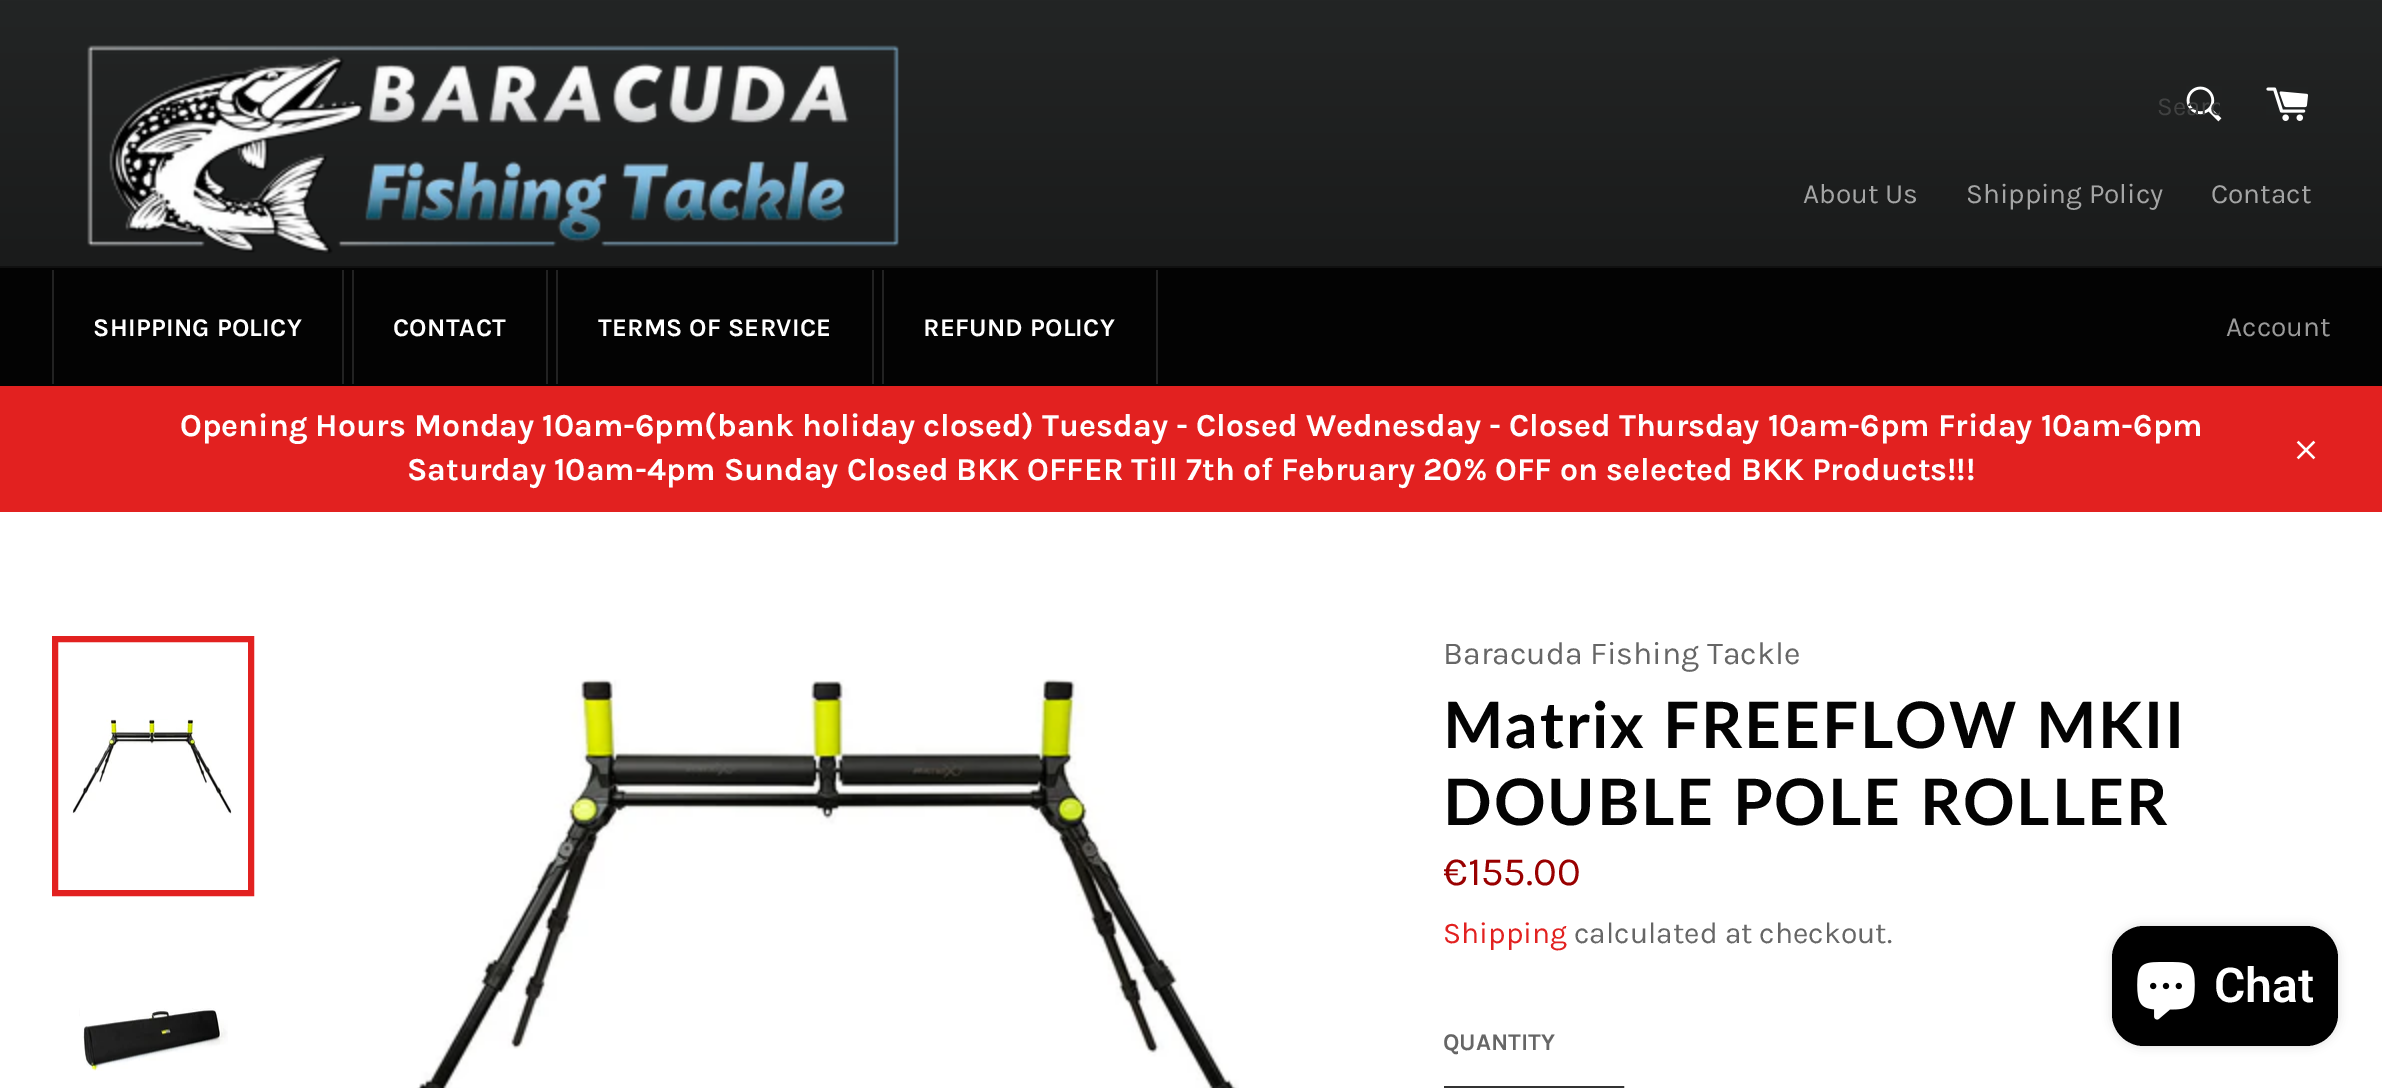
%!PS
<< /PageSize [2382 1088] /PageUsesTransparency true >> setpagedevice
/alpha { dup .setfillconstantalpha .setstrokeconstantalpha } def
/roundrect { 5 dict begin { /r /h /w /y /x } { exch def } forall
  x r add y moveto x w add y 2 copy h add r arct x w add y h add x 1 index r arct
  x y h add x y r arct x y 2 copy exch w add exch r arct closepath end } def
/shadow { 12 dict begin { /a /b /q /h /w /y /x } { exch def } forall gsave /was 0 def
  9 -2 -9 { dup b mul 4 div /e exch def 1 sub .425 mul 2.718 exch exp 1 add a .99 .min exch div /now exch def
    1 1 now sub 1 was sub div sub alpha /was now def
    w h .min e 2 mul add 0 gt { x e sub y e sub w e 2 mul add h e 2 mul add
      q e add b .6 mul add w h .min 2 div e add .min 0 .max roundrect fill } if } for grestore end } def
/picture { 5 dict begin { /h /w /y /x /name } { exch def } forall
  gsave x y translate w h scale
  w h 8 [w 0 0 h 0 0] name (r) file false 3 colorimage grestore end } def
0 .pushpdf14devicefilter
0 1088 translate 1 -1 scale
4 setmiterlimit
1 setgray
0 0 2382 1088 rectfill
gsave newpath 0 0 moveto 2382 0 lineto 2382 266 lineto 0 266 lineto closepath clip newpath
<< /ShadingType 2 /ColorSpace /DeviceRGB /Coords [1191 512 1191 0] /Extend [true true] /Function << /FunctionType 2 /Domain [0 1] /C0 [0.067 0.067 0.067] /C1 [0.137 0.145 0.145] /N 1 >> >> shfill grestore
(img1.rgb) 87 45 812 209 picture
(img2.rgb) 2186 86 36 36 picture
gsave
2156 92 64 30 rectclip
/Karla-Regular [26 0 0 -26 0 0] selectfont
0.255 0.259 0.259 setrgbcolor
2157 115 moveto (Searc) show
grestore
(img3.rgb) 2266 87 42 34 picture
/Karla-Regular [28 0 0 -28 0 0] selectfont
0.643 0.647 0.647 setrgbcolor
1803 203 moveto (About Us) show
1966 203 moveto (Shipping Policy) show
2211 203 moveto (Contact) show
0.012 setgray
0 268 2382 118 rectfill
0.063 setgray
0 266 2382 2 rectfill
0.133 setgray
342 270 2 114 rectfill
52 270 2 114 rectfill
/Karla-Bold [25.5 0 0 -25.5 0 0] selectfont
1 setgray
93 336 moveto 0.25 0 (SHIPPING POLICY) ashow
0.133 setgray
546 270 2 114 rectfill
352 270 2 114 rectfill
1 setgray
393 336 moveto 0.25 0 (CONTACT) ashow
0.133 setgray
872 270 2 114 rectfill
556 270 2 114 rectfill
1 setgray
598 336 moveto 0.25 0 (TERMS OF SERVICE) ashow
0.133 setgray
1156 270 2 114 rectfill
882 270 2 114 rectfill
1 setgray
923 336 moveto 0.25 0 (REFUND POLICY) ashow
/Karla-Regular [28 0 0 -28 0 0] selectfont
0.604 setgray
2226 336 moveto (Account) show
0.886 0.129 0.125 setrgbcolor
0 386 2382 126 rectfill
/Karla-Bold [32 0 0 -32 0 0] selectfont
1 setgray
180 436 moveto (Opening Hours Monday 10am-6pm\(bank holiday closed\) Tuesday - Closed Wednesday - Closed Thursday 10am-6pm Friday 10am-6pm) show
407 480 moveto (Saturday 10am-4pm Sunday Closed BKK OFFER Till 7th of February 20% OFF on selected BKK Products!!!) show
(img4.rgb) 2296 440 20 20 picture
(img5.rgb) 72 719 160 96 picture
0.886 0.129 0.125 setrgbcolor
6 setlinewidth
55 639 196 254 rectstroke
(img6.rgb) 79 1008 149 63 picture
(img7.rgb) 417 679 822 409 picture
/Karla-Regular [32 0 0 -32 0 0] selectfont
0.4 setgray
1443 664 moveto (Baracuda Fishing Tackle) show
/Lato-Bold [64 0 0 -64 0 0] selectfont
0.012 setgray
1443 748 moveto 2 0 (Matrix FREEFLOW MKII) ashow
1443 825 moveto 2 0 (DOUBLE POLE ROLLER) ashow
/Karla-Regular [40 0 0 -40 0 0] selectfont
0.6 0 0 setrgbcolor
1443 885 moveto (€155.00) show
/Karla-Regular [30 0 0 -30 0 0] selectfont
0.886 0.129 0.125 setrgbcolor
1443 943 moveto (Shipping) show
0.4 setgray
1574 943 moveto (calculated at checkout.) show
/Karla-Bold [24 0 0 -24 0 0] selectfont
1443 1050 moveto (QUANTITY) show
0.2 setgray
2 setlinewidth
1445 1087 178 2 rectstroke
0 setgray
2112 926 226 120 32 5 0.15 shadow
2112 926 226 120 32 roundrect fill
(img8.rgb) 2137 962 58 58 picture
/Roboto-SemiBold [48 0 0 -48 0 0] selectfont
1 setgray
2214 1002 moveto (Chat) show
.poppdf14devicefilter showpage
